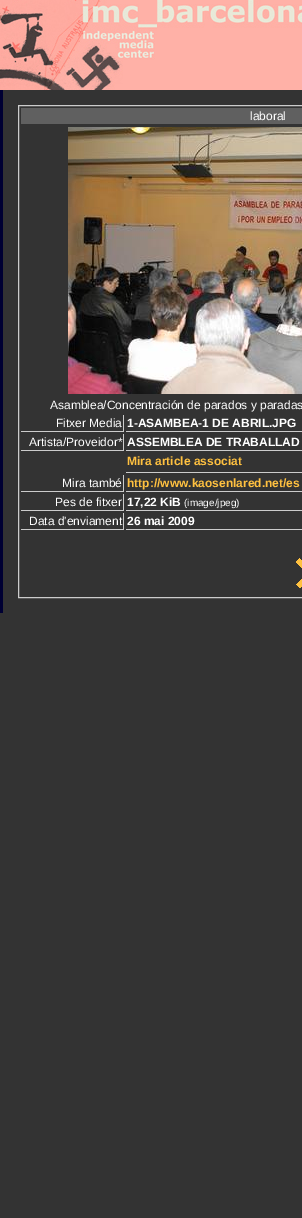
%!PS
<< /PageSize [302 1218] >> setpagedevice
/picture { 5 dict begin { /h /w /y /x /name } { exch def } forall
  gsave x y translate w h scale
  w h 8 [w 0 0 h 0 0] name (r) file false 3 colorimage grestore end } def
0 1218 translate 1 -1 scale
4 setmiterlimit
0.2 setgray
0 0 302 1218 rectfill
(img1.rgb) 0 0 157 90 picture
(img2.rgb) 157 0 145 90 picture
0 0 0.2 setrgbcolor
0 90 3 523 rectfill
0.8 setgray
18.5 105.5 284 492 rectstroke
0.376 setgray
21 108 281 16 rectfill
/LiberationSans-Regular [12 0 0 -12 0 0] selectfont
1 setgray
250 120 moveto (laboral) show
(img3.rgb) 68 127 234 267 picture
50 409 moveto (Asamblea/Concentración de parados y paradas) show
0.8 setgray
123 415 1 17 rectfill
21 431 103 1 rectfill
1 setgray
56 427 moveto (Fitxer Media) show
0.8 setgray
126 431 176 1 rectfill
/LiberationSans-Bold [12 0 0 -12 0 0] selectfont
1 setgray
127 427 moveto (1-ASAMBEA-1 DE ABRIL.JPG) show
0.8 setgray
123 434 1 17 rectfill
21 450 103 1 rectfill
/LiberationSans-Regular [12 0 0 -12 0 0] selectfont
1 setgray
29 446 moveto (Artista/Proveidor*) show
0.8 setgray
126 450 176 1 rectfill
/LiberationSans-Bold [12 0 0 -12 0 0] selectfont
1 setgray
127 446 moveto (ASSEMBLEA DE TRABALLAD) show
0.8 setgray
126 472 176 1 rectfill
1 0.757 0.251 setrgbcolor
127 465 moveto (Mira article associat) show
0.8 setgray
123 475 1 17 rectfill
21 491 103 1 rectfill
/LiberationSans-Regular [12 0 0 -12 0 0] selectfont
1 setgray
62 487 moveto (Mira també) show
0.8 setgray
126 491 176 1 rectfill
/LiberationSans-Bold [12 0 0 -12 0 0] selectfont
1 0.757 0.251 setrgbcolor
127 487 moveto (http://www.kaosenlared.net/es) show
0.8 setgray
123 494 1 17 rectfill
21 510 103 1 rectfill
/LiberationSans-Regular [12 0 0 -12 0 0] selectfont
1 setgray
55 506 moveto (Pes de fitxer) show
0.8 setgray
126 510 176 1 rectfill
/LiberationSans-Bold [12 0 0 -12 0 0] selectfont
1 setgray
127 506 moveto (17,22 KiB) show
/LiberationSans-Regular [10 0 0 -10 0 0] selectfont
184 506 moveto (\(image/jpeg\)) show
0.8 setgray
123 513 1 17 rectfill
21 529 103 1 rectfill
/LiberationSans-Regular [12 0 0 -12 0 0] selectfont
1 setgray
29 525 moveto (Data d'enviament) show
0.8 setgray
126 529 176 1 rectfill
/LiberationSans-Bold [12 0 0 -12 0 0] selectfont
1 setgray
127 525 moveto (26 mai 2009) show
(img4.rgb) 296 558 6 30 picture
showpage
